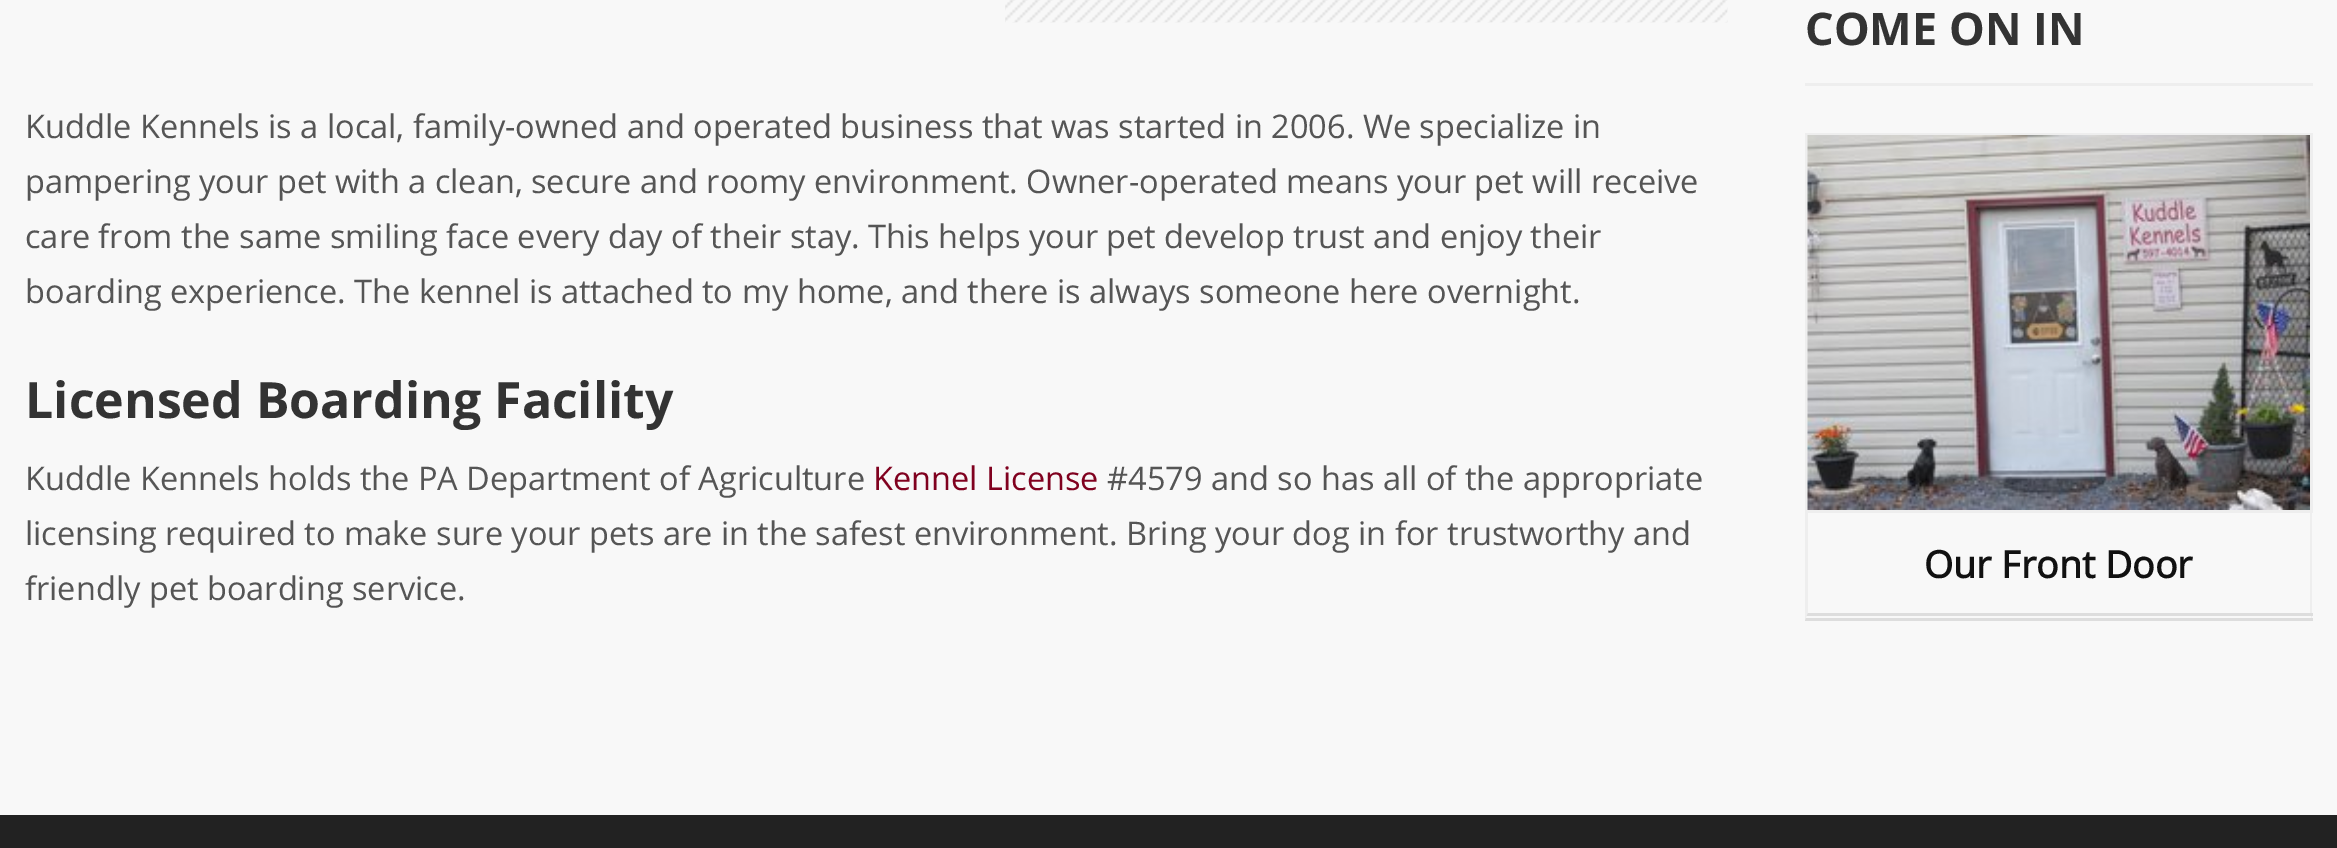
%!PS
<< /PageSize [2337 848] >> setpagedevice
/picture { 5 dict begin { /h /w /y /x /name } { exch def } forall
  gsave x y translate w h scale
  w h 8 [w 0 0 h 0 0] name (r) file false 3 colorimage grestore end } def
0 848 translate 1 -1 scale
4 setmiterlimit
0.973 setgray
0 0 2337 848 rectfill
(img1.rgb) 1005 0 723 23 picture
/OpenSans-Regular [32.5 0 0 -32.5 0 0] selectfont
0.333 setgray
25 138 moveto (Kuddle Kennels is a local, family-owned and operated business that was started in 2006. We specialize in) show
25 193 moveto (pampering your pet with a clean, secure and roomy environment. Owner-operated means your pet will receive) show
25 248 moveto (care from the same smiling face every day of their stay. This helps your pet develop trust and enjoy their) show
25 303 moveto (boarding experience. The kennel is attached to my home, and there is always someone here overnight.) show
/OpenSans-Bold [50 0 0 -50 0 0] selectfont
0.2 setgray
25 418 moveto (Licensed Boarding Facility) show
/OpenSans-Regular [32.5 0 0 -32.5 0 0] selectfont
0.333 setgray
25 490 moveto (Kuddle Kennels holds the PA Department of Agriculture) show
0.502 0.004 0.122 setrgbcolor
873 490 moveto (Kennel License) show
0.333 setgray
1107 490 moveto (#4579 and so has all of the appropriate) show
25 545 moveto (licensing required to make sure your pets are in the safest environment. Bring your dog in for trustworthy and) show
25 600 moveto (friendly pet boarding service.) show
/OpenSans-Bold [45 0 0 -45 0 0] selectfont
0.2 setgray
1805 45 moveto (COME ON IN) show
0.933 setgray
1805 83 508 3 rectfill
1805 133 508 2 rectfill
1805 133 3 377 rectfill
(img2.rgb) 1807 135 503 375 picture
2310 133 3 377 rectfill
1805 510 508 3 rectfill
newpath 2312 510 moveto 2312 620 lineto 2310 612 lineto 2310 512 lineto closepath fill
0.867 setgray
1805 613 508 3 rectfill
1805 618 508 3 rectfill
0.933 setgray
newpath 1805 620 moveto 1805 510 lineto 1808 512 lineto 1808 612 lineto closepath fill
/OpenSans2-Bold [37.5 0 0 -37.5 0 0] selectfont
0.067 setgray
1924 578 moveto (Our Front Door) show
0.133 setgray
0 815 2337 33 rectfill
showpage
